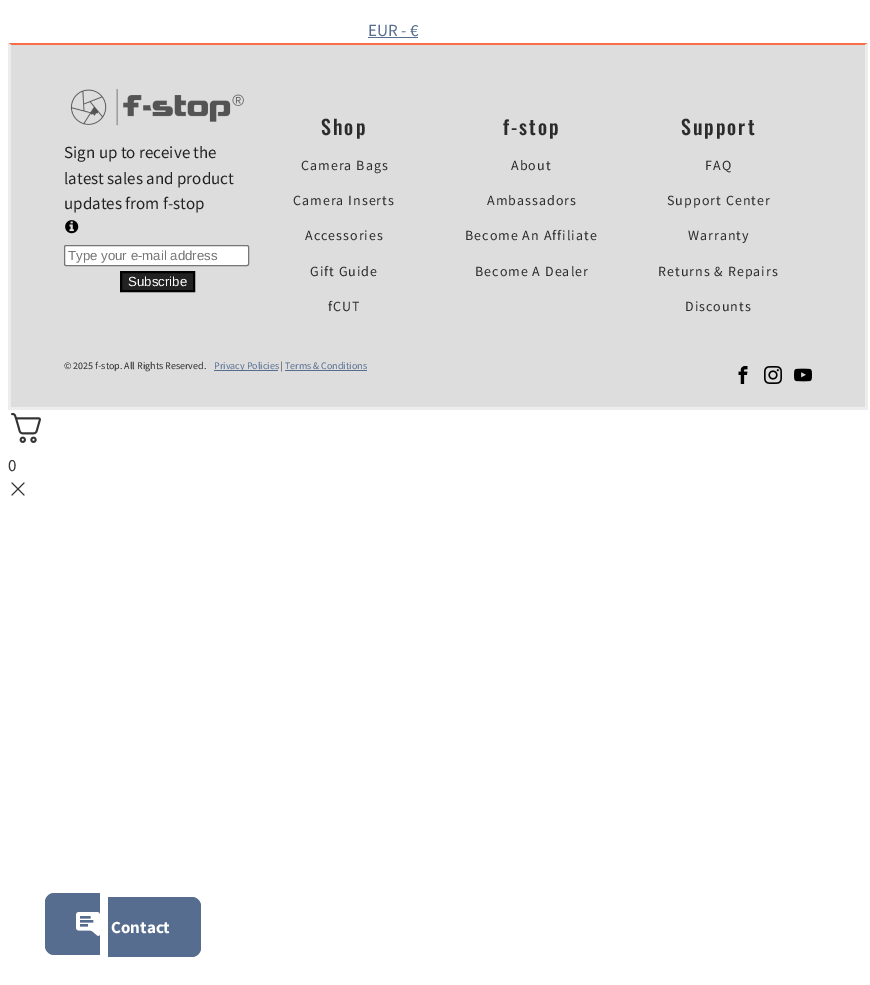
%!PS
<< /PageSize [870 985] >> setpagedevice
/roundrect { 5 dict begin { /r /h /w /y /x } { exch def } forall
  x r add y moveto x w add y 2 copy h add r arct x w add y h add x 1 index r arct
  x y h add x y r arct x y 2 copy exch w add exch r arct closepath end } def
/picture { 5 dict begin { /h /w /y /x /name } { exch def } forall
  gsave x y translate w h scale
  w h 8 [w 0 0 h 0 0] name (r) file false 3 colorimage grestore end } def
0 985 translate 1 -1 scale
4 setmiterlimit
1 setgray
0 0 870 985 rectfill
/SourceSansPro-Regular [17 0 0 -17 0 0] selectfont
0.337 0.427 0.561 setrgbcolor
368 36 moveto (EUR - €) show
368 37 50 1 rectfill
(img1.rgb) 11 413 30 30 picture
0.2 setgray
8 471 moveto (0) show
0.867 setgray
11 45 854 362 rectfill
0.984 0.427 0.282 setrgbcolor
newpath 8 43 moveto 868 43 lineto 865 45 lineto 11 45 lineto closepath fill
0.929 0.933 0.925 setrgbcolor
newpath 868 43 moveto 868 410 lineto 865 407 lineto 865 45 lineto closepath fill
8 407 860 3 rectfill
newpath 8 410 moveto 8 43 lineto 11 45 lineto 11 407 lineto closepath fill
(img2.rgb) 70 89 174 37 picture
0.133 setgray
64 158 moveto (Sign up to receive the) show
64 184 moveto (latest sales and product) show
64 209 moveto (updates from f-stop) show
(img3.rgb) 65 220 14 14 picture
1 setgray
64.5 245.5 184 20 1.5 roundrect gsave fill grestore
0.463 setgray
stroke
/LiberationSans-Regular [13.25 0 0 -13.25 0 0] selectfont
0.459 setgray
68 260 moveto (Type your e-mail address) show
0.133 setgray
newpath 121 272 moveto 194 272 lineto 194 291 lineto 121 291 lineto closepath gsave fill grestore
0 setgray
2 setlinewidth
stroke
1 setgray
128 286 moveto (Subscribe) show
/Oswald-Medium [20 0 0 -20 0 0] selectfont
0.169 setgray
321 135 moveto 2 0 (Shop) ashow
/SourceSansPro-Regular [14 0 0 -14 0 0] selectfont
301 170 moveto 1 0 (Camera Bags) ashow
293 205 moveto 1 0 (Camera Inserts) ashow
305 240 moveto 1 0 (Accessories) ashow
310 276 moveto 1 0 (Gift Guide) ashow
328 311 moveto 1 0 (fCUT) ashow
/Oswald-Medium [20 0 0 -20 0 0] selectfont
503 135 moveto 2 0 (f-stop) ashow
/SourceSansPro-Regular [14 0 0 -14 0 0] selectfont
511 170 moveto 1 0 (About) ashow
487 205 moveto 1 0 (Ambassadors) ashow
465 240 moveto 1 0 (Become An Affiliate) ashow
475 276 moveto 1 0 (Become A Dealer) ashow
/Oswald-Medium [20 0 0 -20 0 0] selectfont
681 135 moveto 2 0 (Support) ashow
/SourceSansPro-Regular [14 0 0 -14 0 0] selectfont
705 170 moveto 1 0 (FAQ) ashow
667 205 moveto 1 0 (Support Center) ashow
688 240 moveto 1 0 (Warranty) ashow
658 276 moveto 1 0 (Returns & Repairs) ashow
685 311 moveto 1 0 (Discounts) ashow
/SourceSansPro-Regular [10 0 0 -10 0 0] selectfont
64 369 moveto (© 2025 f-stop. All Rights Reserved.) show
0.337 0.427 0.561 setrgbcolor
214 370 64 1 rectfill
214 369 moveto (Privacy Policies) show
0.169 setgray
280 369 moveto (|) show
0.337 0.427 0.561 setrgbcolor
285 369 moveto (Terms & Conditions) show
285 370 82 1 rectfill
(img4.rgb) 738 366 10 18 picture
(img5.rgb) 764 366 18 18 picture
(img6.rgb) 794 368 18 14 picture
newpath 55 893 moveto 100 893 lineto 100 955 lineto 55 955 lineto 49.5 955 45 950.5 45 945 curveto 45 903 lineto 45 897.5 49.5 893 55 893 curveto closepath fill
newpath 55 893 moveto 100 893 lineto 100 955 lineto 55 955 lineto 49 955 45 951 45 945 curveto 45 903 lineto 45 897 49 893 55 893 curveto closepath 55 894 moveto 100 894 lineto 100 954 lineto 55 954 lineto 50 954 46 950 46 945 curveto 46 903 lineto 46 898 50 894 55 894 curveto closepath eofill
(img7.rgb) 76 912 24 24 picture
newpath 111 897 moveto 191 897 lineto 196.5 897 201 901.5 201 907 curveto 201 947 lineto 201 952.5 196.5 957 191 957 curveto 111 957 lineto closepath fill
newpath 111 897 moveto 191 897 lineto 197 897 201 901 201 907 curveto 201 947 lineto 201 953 197 957 191 957 curveto 111 957 lineto closepath 111 898 moveto 191 898 lineto 196 898 200 902 200 907 curveto 200 947 lineto 200 952 196 956 191 956 curveto 111 956 lineto closepath eofill
/SourceSansPro-Bold [17 0 0 -17 0 0] selectfont
1 setgray
111 933 moveto (Contact) show
0.337 0.427 0.561 setrgbcolor
108 897 3 60 rectfill
(img8.rgb) 11 482 14 14 picture
showpage
